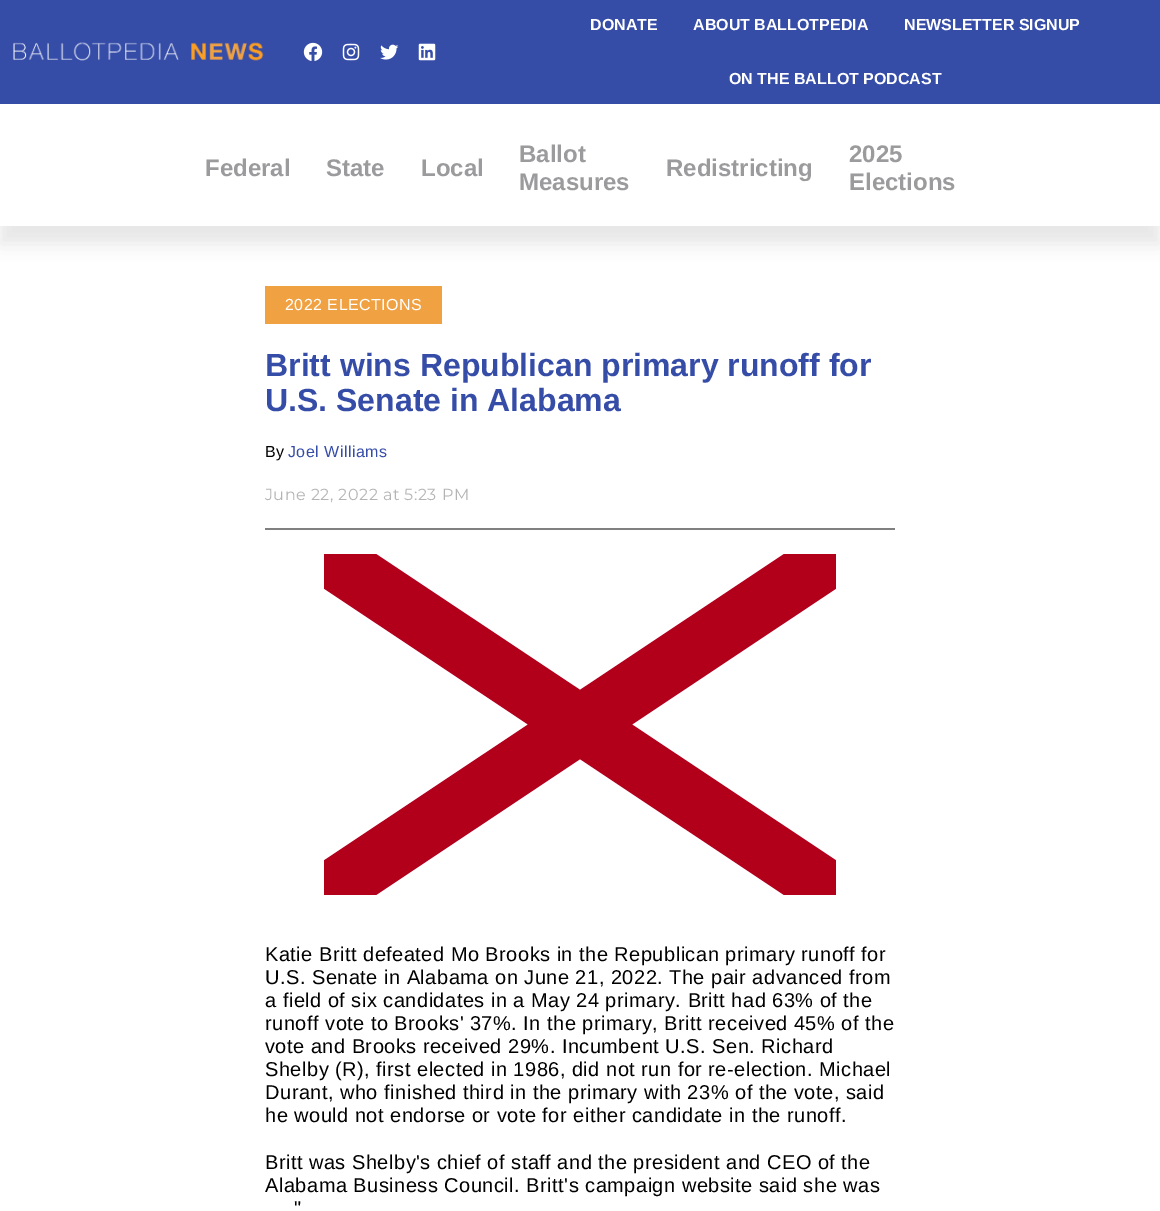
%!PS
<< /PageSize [1160 1211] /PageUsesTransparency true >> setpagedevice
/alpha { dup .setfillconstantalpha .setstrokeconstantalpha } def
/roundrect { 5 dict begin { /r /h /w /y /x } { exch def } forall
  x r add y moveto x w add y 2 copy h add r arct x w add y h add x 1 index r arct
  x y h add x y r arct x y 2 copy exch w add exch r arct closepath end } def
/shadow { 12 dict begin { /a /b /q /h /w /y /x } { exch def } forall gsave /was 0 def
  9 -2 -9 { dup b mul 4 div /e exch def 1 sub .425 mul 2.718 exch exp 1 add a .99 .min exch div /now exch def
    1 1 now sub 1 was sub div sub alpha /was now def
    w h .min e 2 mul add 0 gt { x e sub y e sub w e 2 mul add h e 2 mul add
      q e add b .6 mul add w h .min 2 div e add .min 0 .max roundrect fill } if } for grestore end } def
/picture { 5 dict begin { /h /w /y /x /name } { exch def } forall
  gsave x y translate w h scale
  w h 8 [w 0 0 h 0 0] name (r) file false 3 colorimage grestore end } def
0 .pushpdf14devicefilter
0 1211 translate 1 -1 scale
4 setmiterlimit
1 setgray
0 0 1160 1211 rectfill
0.212 0.302 0.659 setrgbcolor
0 0 1160 104 rectfill
(img1.rgb) 13 42 251 19 picture
(img2.rgb) 303 42 20 19 picture
(img3.rgb) 342 43 18 18 picture
(img4.rgb) 380 44 19 16 picture
(img5.rgb) 418 43 18 18 picture
/LiberationSans-Bold [16 0 0 -16 0 0] selectfont
1 setgray
590 30 moveto (DONATE) show
693 30 moveto (ABOUT BALLOTPEDIA) show
904 30 moveto (NEWSLETTER SIGNUP) show
729 84 moveto (ON THE BALLOT PODCAST) show
gsave
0 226 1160 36 rectclip
0.902 0.902 0.906 setrgbcolor
0 158 1160 86 0 9 1 shadow
grestore
/LiberationSans-Bold [24 0 0 -24 0 0] selectfont
0.608 0.608 0.616 setrgbcolor
205 176 moveto (Federal) show
326 176 moveto (State) show
421 176 moveto (Local) show
519 162 moveto (Ballot) show
519 190 moveto (Measures) show
666 176 moveto (Redistricting) show
849 162 moveto (2025) show
849 190 moveto (Elections) show
0.941 0.631 0.259 setrgbcolor
265 286 177 38 rectfill
/LiberationSans-Regular [16 0 0 -16 0 0] selectfont
1 setgray
285 310 moveto 0.48 0 (2022 ELECTIONS) ashow
/LiberationSans-Bold [32 0 0 -32 0 0] selectfont
0.212 0.302 0.659 setrgbcolor
265 376 moveto (Britt wins Republican primary runoff for) show
265 411 moveto (U.S. Senate in Alabama) show
/LiberationSans-Regular [16 0 0 -16 0 0] selectfont
0 setgray
265 457 moveto 0.48 0 (By) ashow
0.212 0.302 0.659 setrgbcolor
288 457 moveto 0.48 0 (Joel Williams) ashow
/Montserrat-Regular [16 0 0 -16 0 0] selectfont
0.706 0.706 0.71 setrgbcolor
265 500 moveto 0.48 0 (June 22, 2022 at 5:23 PM) ashow
0.502 setgray
265 528 630 2 rectfill
(img6.rgb) 324 554 512 341 picture
/LiberationSans-Regular [20 0 0 -20 0 0] selectfont
0 setgray
265 961 moveto 0.48 0 (Katie Britt defeated Mo Brooks in the Republican primary runoff for) ashow
265 984 moveto 0.48 0 (U.S. Senate in Alabama on June 21, 2022. The pair advanced from) ashow
265 1007 moveto 0.48 0 (a field of six candidates in a May 24 primary. Britt had 63% of the) ashow
265 1030 moveto 0.48 0 (runoff vote to Brooks' 37%. In the primary, Britt received 45% of the) ashow
265 1053 moveto 0.48 0 (vote and Brooks received 29%. Incumbent U.S. Sen. Richard) ashow
265 1076 moveto 0.48 0 (Shelby \(R\), first elected in 1986, did not run for re-election. Michael) ashow
265 1099 moveto 0.48 0 (Durant, who finished third in the primary with 23% of the vote, said) ashow
265 1122 moveto 0.48 0 (he would not endorse or vote for either candidate in the runoff.) ashow
265 1169 moveto 0.48 0 (Britt was Shelby's chief of staff and the president and CEO of the) ashow
265 1192 moveto 0.48 0 (Alabama Business Council. Britt's campaign website said she was) ashow
294 1215 moveto 0.48 0 (") ashow
.poppdf14devicefilter showpage
